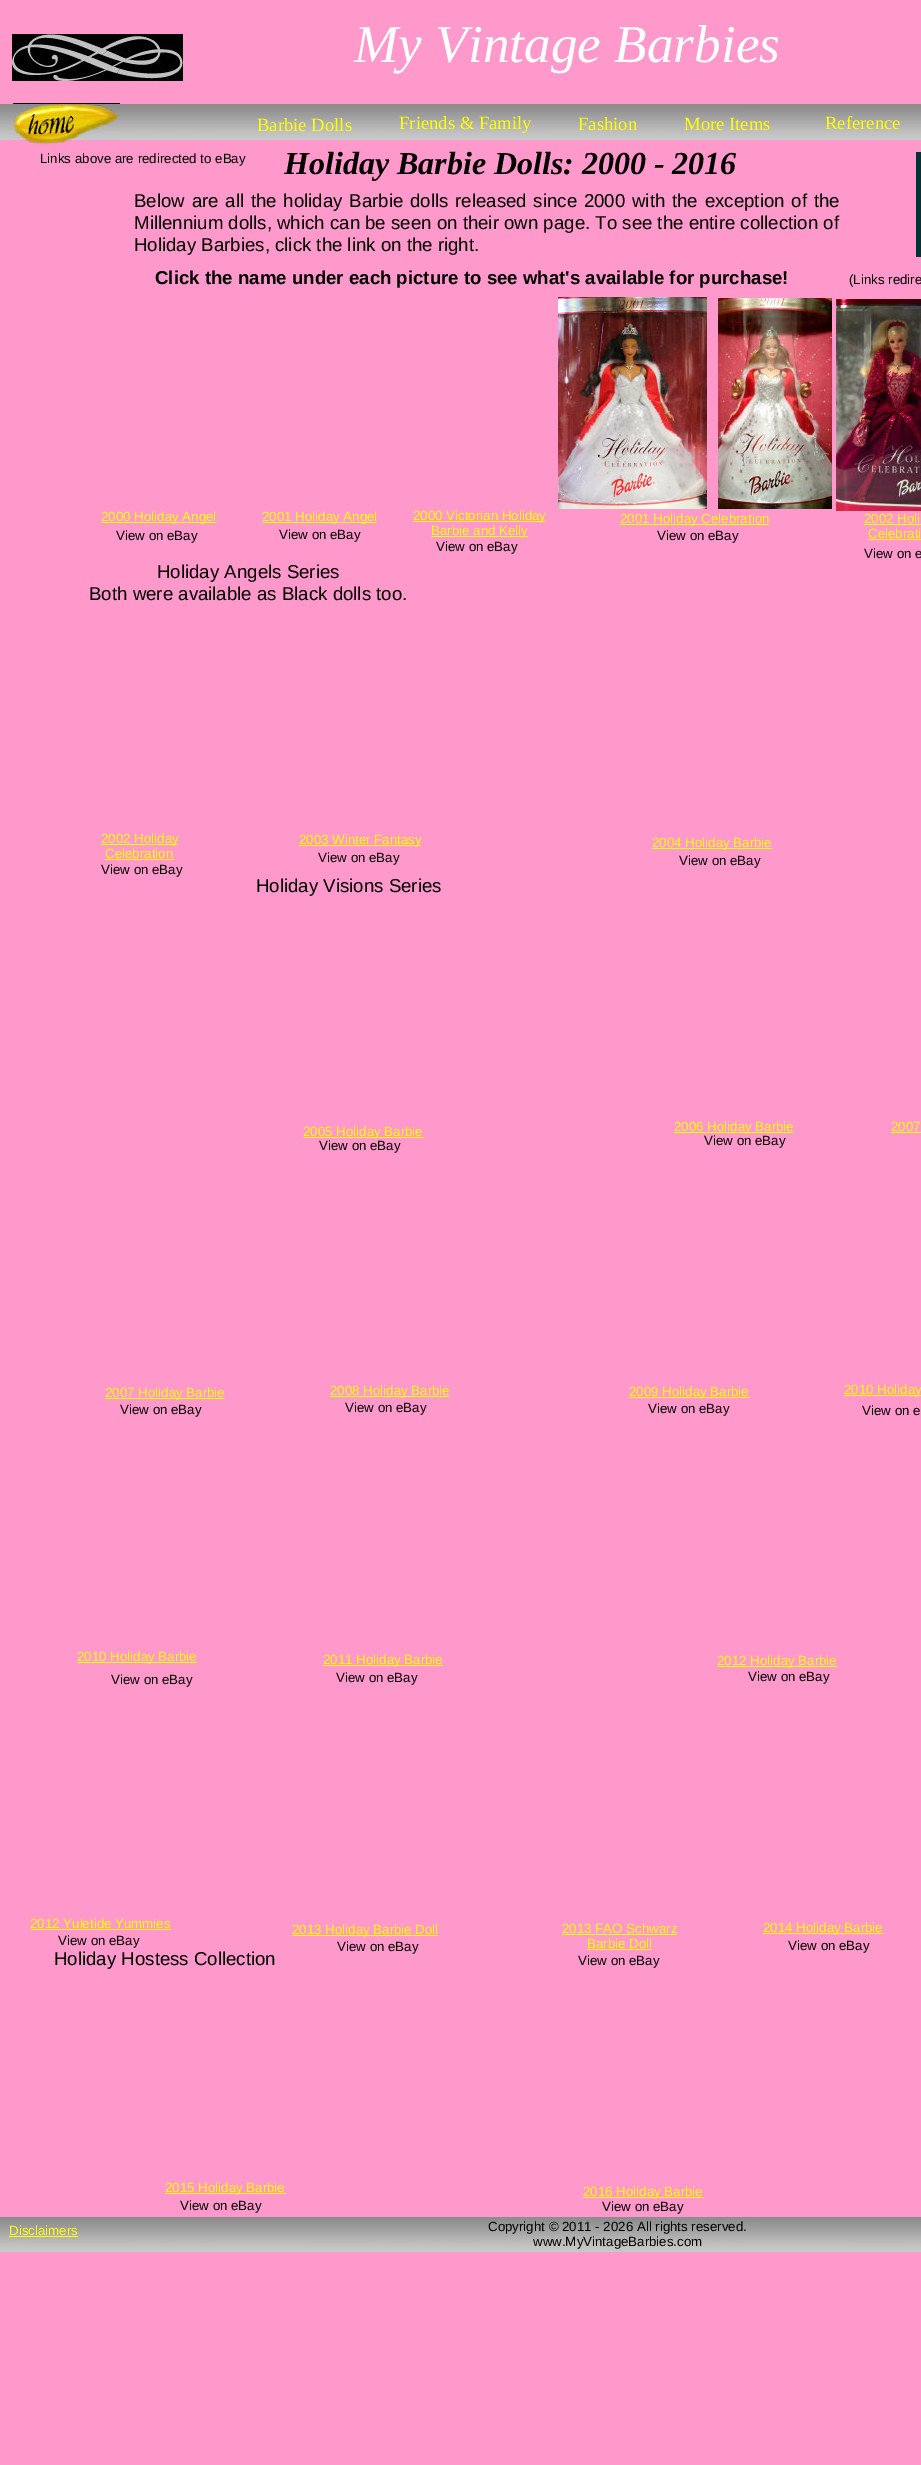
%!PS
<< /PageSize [921 2465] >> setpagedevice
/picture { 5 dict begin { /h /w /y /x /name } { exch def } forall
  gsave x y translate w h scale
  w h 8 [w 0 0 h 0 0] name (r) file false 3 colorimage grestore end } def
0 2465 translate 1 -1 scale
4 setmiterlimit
1 0.6 0.8 setrgbcolor
0 0 921 2465 rectfill
(img1.rgb) 12 34 171 47 picture
/LiberationSerif-Italic [53.25 0 0 -53.25 0 0] selectfont
1 setgray
354 62 moveto (My Vintage Barbies) show
(img3.rgb) 0 104 921 36 picture
(img2.rgb) 13 103 107 42 picture
/LiberationSerif-Regular [18.65 0 0 -18.65 0 0] selectfont
1 1 0 setrgbcolor
257 131 moveto (Barbie Dolls) show
399 129 moveto (Friends & Family) show
578 130 moveto (Fashion) show
684 130 moveto (More Items) show
825 129 moveto (Reference) show
/LiberationSans-Regular [13.3 0 0 -13.3 0 0] selectfont
0 setgray
40 163 moveto (Links above are redirected to eBay) show
/LiberationSerif-BoldItalic [32 0 0 -32 0 0] selectfont
284 174 moveto (Holiday Barbie Dolls: 2000 - 2016) show
0 0.2 0.2 setrgbcolor
916 152 5 105 rectfill
/LiberationSans-Regular [18.65 0 0 -18.65 0 0] selectfont
0 setgray
134 207 moveto 1.6 0 32 (Below are all the holiday Barbie dolls released since 2000 with the exception of the) widthshow
134 229 moveto (Millennium dolls, which can be seen on their own page. To see the entire collection of) show
134 251 moveto (Holiday Barbies, click the link on the right.) show
/LiberationSans-Bold [18.65 0 0 -18.65 0 0] selectfont
155 284 moveto (Click the name under each picture to see what's available for purchase!) show
/LiberationSans-Regular [13.3 0 0 -13.3 0 0] selectfont
849 284 moveto (\(Links redire) show
(img4.rgb) 558 297 149 212 picture
(img5.rgb) 718 298 114 211 picture
(img6.rgb) 836 299 85 212 picture
1 1 0 setrgbcolor
101 522 116 1 rectfill
101 521 moveto (2000 Holiday Angel) show
262 522 115 1 rectfill
262 521 moveto (2001 Holiday Angel) show
413 521 133 1 rectfill
413 520 moveto (2000 Victorian Holiday) show
431 536 97 1 rectfill
431 535 moveto (Barbie and Kelly) show
620 524 149 1 rectfill
620 523 moveto (2001 Holiday Celebration) show
864 523 moveto (2002 Holi) show
864 524 57 1 rectfill
868 538 moveto (Celebrati) show
868 539 53 1 rectfill
0 setgray
116 540 moveto (View on eBay) show
279 539 moveto (View on eBay) show
657 540 moveto (View on eBay) show
436 551 moveto (View on eBay) show
864 558 moveto (View on e) show
/LiberationSans-Regular [18.65 0 0 -18.65 0 0] selectfont
157 578 moveto (Holiday Angels Series) show
89 600 moveto (Both were available as Black dolls too.) show
1 1 0 setrgbcolor
101 844 77 1 rectfill
/LiberationSans-Regular [13.3 0 0 -13.3 0 0] selectfont
101 843 moveto (2002 Holiday) show
105 858 moveto (Celebration) show
105 859 69 1 rectfill
299 845 122 1 rectfill
299 844 moveto (2003 Winter Fantasy) show
652 848 120 1 rectfill
652 847 moveto (2004 Holiday Barbie) show
0 setgray
318 862 moveto (View on eBay) show
679 865 moveto (View on eBay) show
101 874 moveto (View on eBay) show
/LiberationSans-Regular [18.65 0 0 -18.65 0 0] selectfont
256 892 moveto (Holiday Visions Series) show
1 1 0 setrgbcolor
303 1137 121 1 rectfill
/LiberationSans-Regular [13.3 0 0 -13.3 0 0] selectfont
303 1136 moveto (2005 Holiday Barbie) show
674 1132 120 1 rectfill
674 1131 moveto (2006 Holiday Barbie) show
891 1131 moveto (2007) show
891 1132 30 1 rectfill
0 setgray
319 1150 moveto (View on eBay) show
704 1145 moveto (View on eBay) show
1 1 0 setrgbcolor
105 1398 120 1 rectfill
105 1397 moveto (2007 Holiday Barbie) show
330 1396 120 1 rectfill
330 1395 moveto (2008 Holiday Barbie) show
629 1397 121 1 rectfill
629 1396 moveto (2009 Holiday Barbie) show
844 1395 77 1 rectfill
844 1394 moveto (2010 Holiday) show
0 setgray
120 1414 moveto (View on eBay) show
345 1412 moveto (View on eBay) show
648 1413 moveto (View on eBay) show
862 1415 moveto (View on e) show
1 1 0 setrgbcolor
77 1662 120 1 rectfill
77 1661 moveto (2010 Holiday Barbie) show
323 1665 120 1 rectfill
323 1664 moveto (2011 Holiday Barbie) show
717 1666 120 1 rectfill
717 1665 moveto (2012 Holiday Barbie) show
0 setgray
111 1684 moveto (View on eBay) show
336 1682 moveto (View on eBay) show
748 1681 moveto (View on eBay) show
1 1 0 setrgbcolor
30 1928 moveto (2012 Yuletide Yummies) show
30 1929 141 1 rectfill
292 1935 146 1 rectfill
292 1934 moveto (2013 Holiday Barbie Doll) show
562 1933 moveto (2013 FAO Schwarz) show
562 1934 115 1 rectfill
587 1948 moveto (Barbie Doll) show
587 1949 65 1 rectfill
763 1933 121 1 rectfill
763 1932 moveto (2014 Holiday Barbie) show
0 setgray
58 1945 moveto (View on eBay) show
337 1951 moveto (View on eBay) show
788 1950 moveto (View on eBay) show
/LiberationSans-Regular [18.65 0 0 -18.65 0 0] selectfont
54 1965 moveto (Holiday Hostess Collection) show
/LiberationSans-Regular [13.3 0 0 -13.3 0 0] selectfont
578 1965 moveto (View on eBay) show
1 1 0 setrgbcolor
165 2193 121 1 rectfill
165 2192 moveto (2015 Holiday Barbie) show
583 2197 121 1 rectfill
583 2196 moveto (2016 Holiday Barbie) show
0 setgray
180 2210 moveto (View on eBay) show
602 2211 moveto (View on eBay) show
(img7.rgb) 0 2217 921 35 picture
1 1 0 setrgbcolor
9 2235 moveto (Disclaimers) show
9 2236 69 1 rectfill
0 setgray
488 2231 moveto (Copyright © 2011 - 2026 All rights reserved.) show
533 2246 moveto (www.MyVintageBarbies.com) show
showpage
